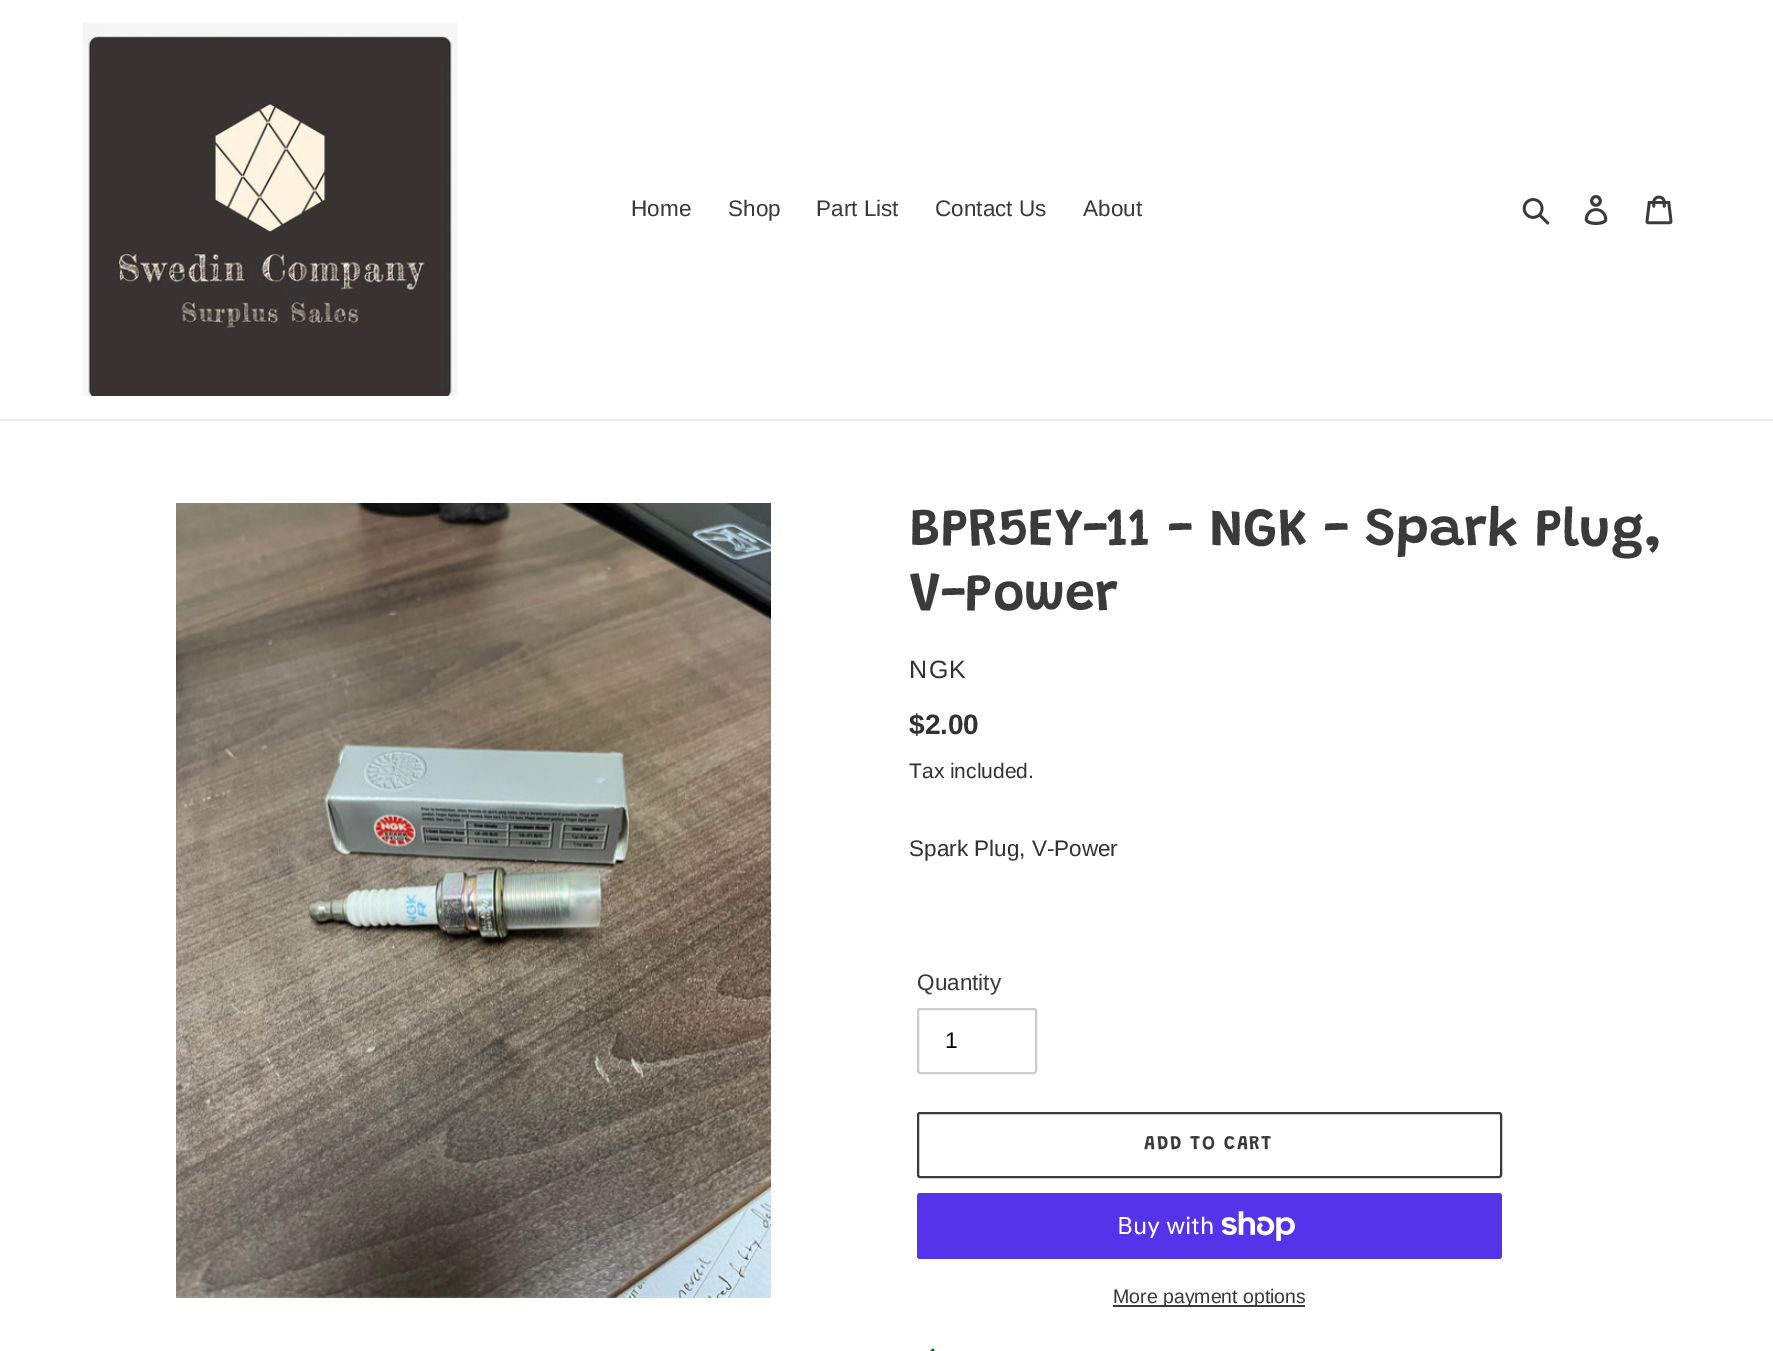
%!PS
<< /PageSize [1773 1351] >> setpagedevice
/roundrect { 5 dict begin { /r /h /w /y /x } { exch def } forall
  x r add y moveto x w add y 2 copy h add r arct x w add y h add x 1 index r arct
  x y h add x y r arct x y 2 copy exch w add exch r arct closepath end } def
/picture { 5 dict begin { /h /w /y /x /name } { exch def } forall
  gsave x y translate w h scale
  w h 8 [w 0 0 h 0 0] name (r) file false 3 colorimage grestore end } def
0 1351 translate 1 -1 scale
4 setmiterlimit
1 setgray
0 0 1773 1351 rectfill
0.922 setgray
0 419 1773 2 rectfill
(img1.rgb) 82 22 376 374 picture
/LiberationSans-Regular [22.5 0 0 -22.5 0 0] selectfont
0.227 setgray
631 216 moveto (Home) show
728 216 moveto (Shop) show
816 216 moveto (Part List) show
935 216 moveto (Contact Us) show
1083 216 moveto (About) show
(img2.rgb) 1522 198 28 27 picture
(img3.rgb) 1584 195 24 30 picture
(img4.rgb) 1645 195 28 30 picture
(img5.rgb) 176 503 595 795 picture
/Grandstander-SemiBold [54 0 0 -54 0 0] selectfont
909 545 moveto (BPR5EY-11 - NGK - Spark Plug,) show
909 610 moveto (V-Power) show
/LiberationSans-Regular [25 0 0 -25 0 0] selectfont
0.2 0.196 0.196 setrgbcolor
909 678 moveto 1.5 0 (NGK) ashow
/LiberationSans-Bold [28 0 0 -28 0 0] selectfont
909 734 moveto ($2.00) show
/LiberationSans-Regular [21 0 0 -21 0 0] selectfont
909 778 moveto (Tax included.) show
/LiberationSans-Regular [22.5 0 0 -22.5 0 0] selectfont
909 856 moveto (Spark Plug, V-Power) show
0.227 setgray
917 990 moveto (Quantity) show
0.8 setgray
2 setlinewidth
918 1009 118 64 2 roundrect stroke
0 setgray
945 1048 moveto (1) show
0.227 setgray
918 1113 583 64 2 roundrect stroke
/Grandstander-SemiBold [19.5 0 0 -19.5 0 0] selectfont
1144 1149 moveto 1.5 0 (ADD TO CART) ashow
0.329 0.2 0.922 setrgbcolor
917 1193 585 66 3 roundrect fill
/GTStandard-Regular [24 0 0 -24 0 0] selectfont
1 setgray
1117 1234 moveto (Buy with) show
(img6.rgb) 1221 1211 74 30 picture
0.227 setgray
1113 1305 192 2 rectfill
/LiberationSans-Regular [19.5 0 0 -19.5 0 0] selectfont
1113 1303 moveto (More payment options) show
(img7.rgb) 930 1348 5 3 picture
showpage
